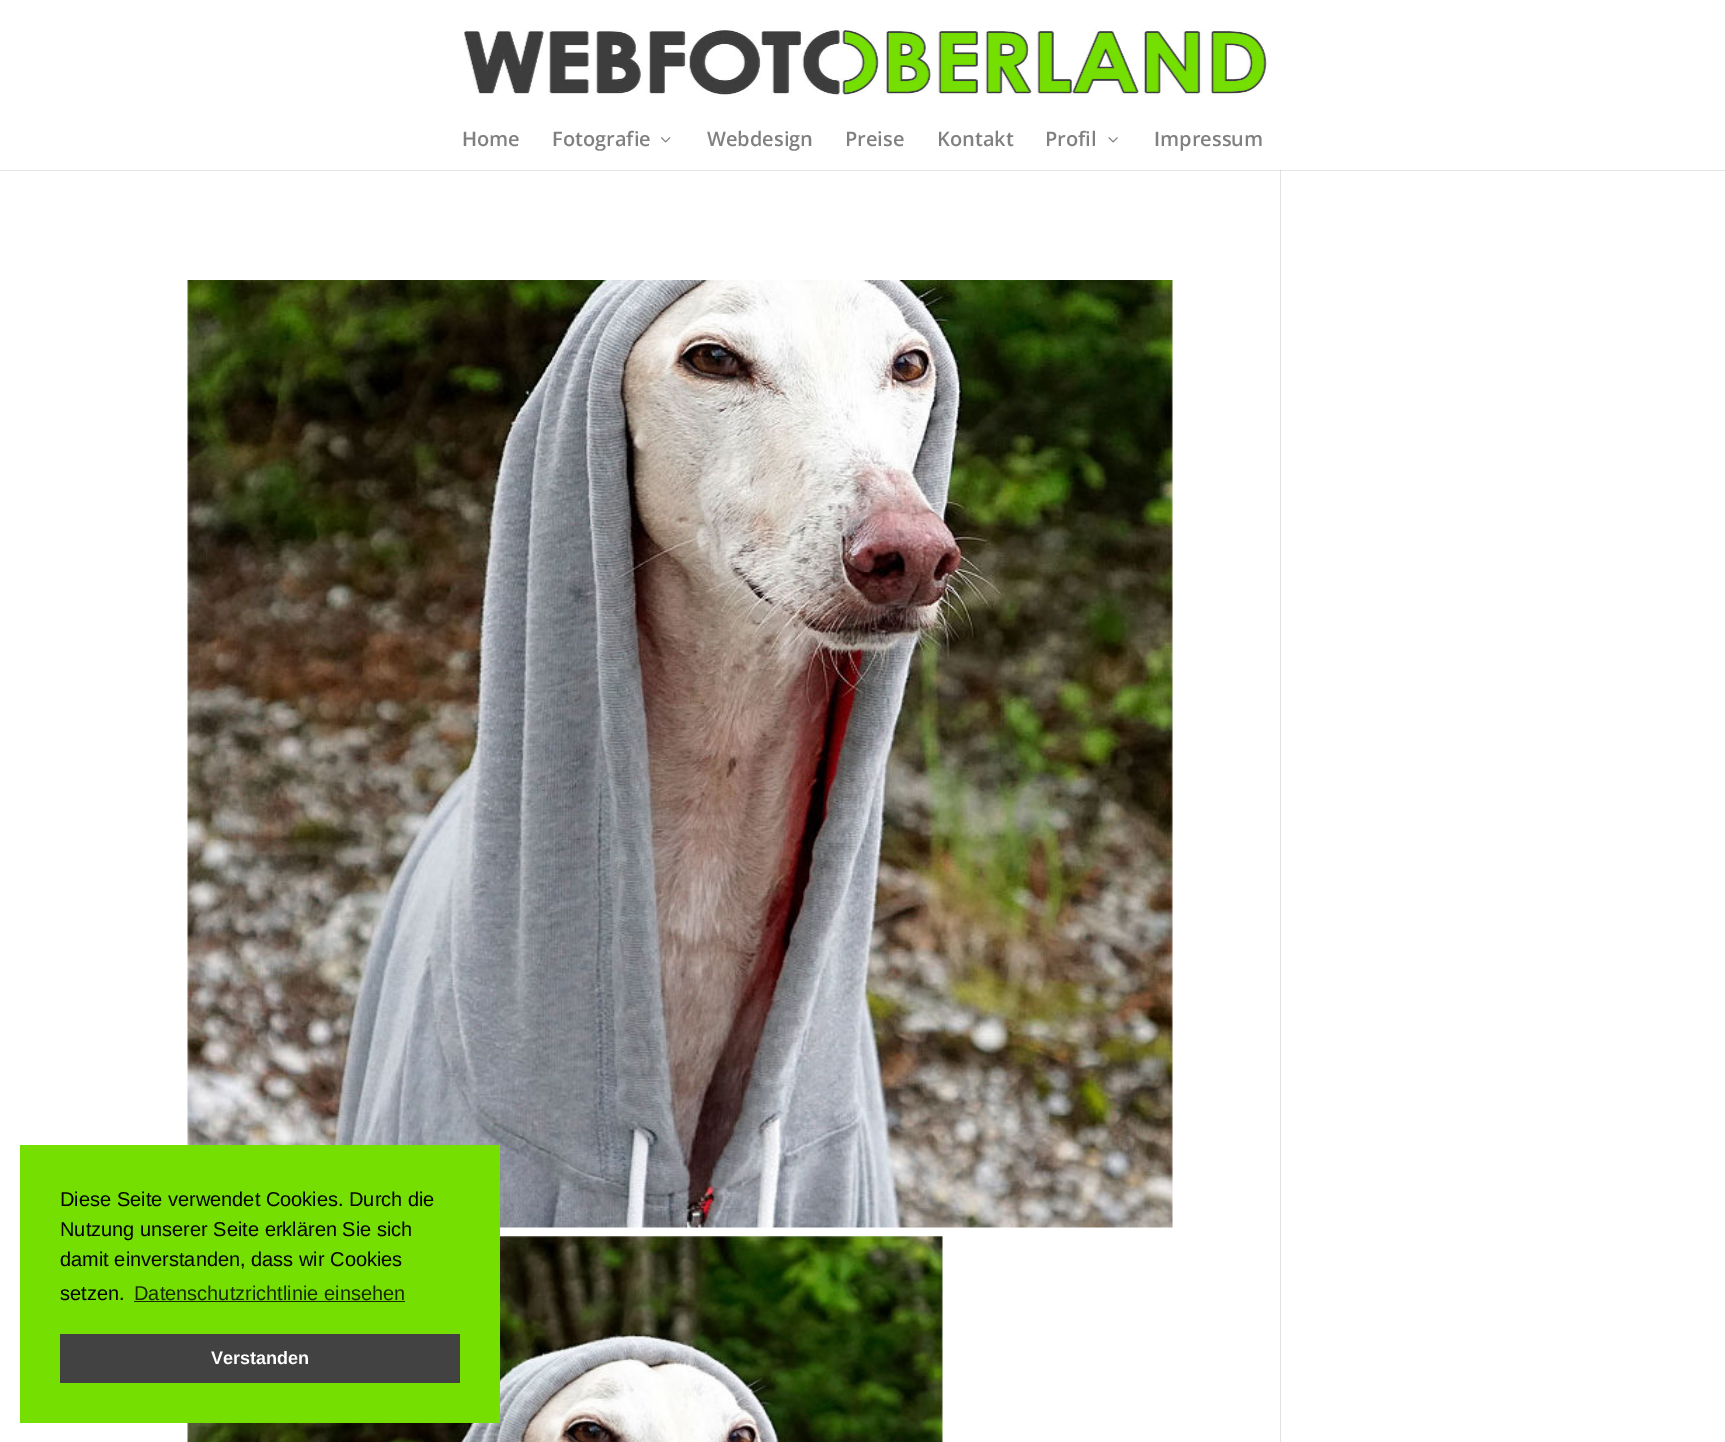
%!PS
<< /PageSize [1725 1442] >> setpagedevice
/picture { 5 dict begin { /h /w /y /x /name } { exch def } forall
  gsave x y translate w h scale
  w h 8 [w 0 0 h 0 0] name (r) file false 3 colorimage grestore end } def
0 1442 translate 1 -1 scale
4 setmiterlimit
1 setgray
0 0 1725 1442 rectfill
0.902 setgray
0 170 1725 1 rectfill
(img1.rgb) 464 30 803 65 picture
/OpenSans-SemiBold [20 0 0 -20 0 0] selectfont
0.502 setgray
462 146 moveto (Home) show
552 146 moveto (Fotografie) show
(img2.rgb) 661 137 10 6 picture
707 146 moveto (Webdesign) show
845 146 moveto (Preise) show
937 146 moveto (Kontakt) show
1045 146 moveto (Profil) show
(img3.rgb) 1108 137 10 6 picture
1154 146 moveto (Impressum) show
(img4.rgb) 187 280 986 948 picture
(img5.rgb) 187 1236 756 206 picture
0.886 setgray
1280 170 1 1272 rectfill
0.796 setgray
1280 170 1 1 rectfill
0.455 0.875 0 setrgbcolor
20 1145 480 278 rectfill
/LiberationSans-Regular [20 0 0 -20 0 0] selectfont
0 setgray
60 1206 moveto (Diese Seite verwendet Cookies. Durch die) show
60 1236 moveto (Nutzung unserer Seite erklären Sie sich) show
60 1266 moveto (damit einverstanden, dass wir Cookies) show
60 1300 moveto (setzen.) show
0.09 0.176 0 setrgbcolor
134 1300 moveto (Datenschutzrichtlinie einsehen) show
134 1301 271 1 rectfill
0.259 setgray
60 1334 400 49 rectfill
/LiberationSans-Bold [18 0 0 -18 0 0] selectfont
1 setgray
211 1364 moveto (Verstanden) show
showpage
